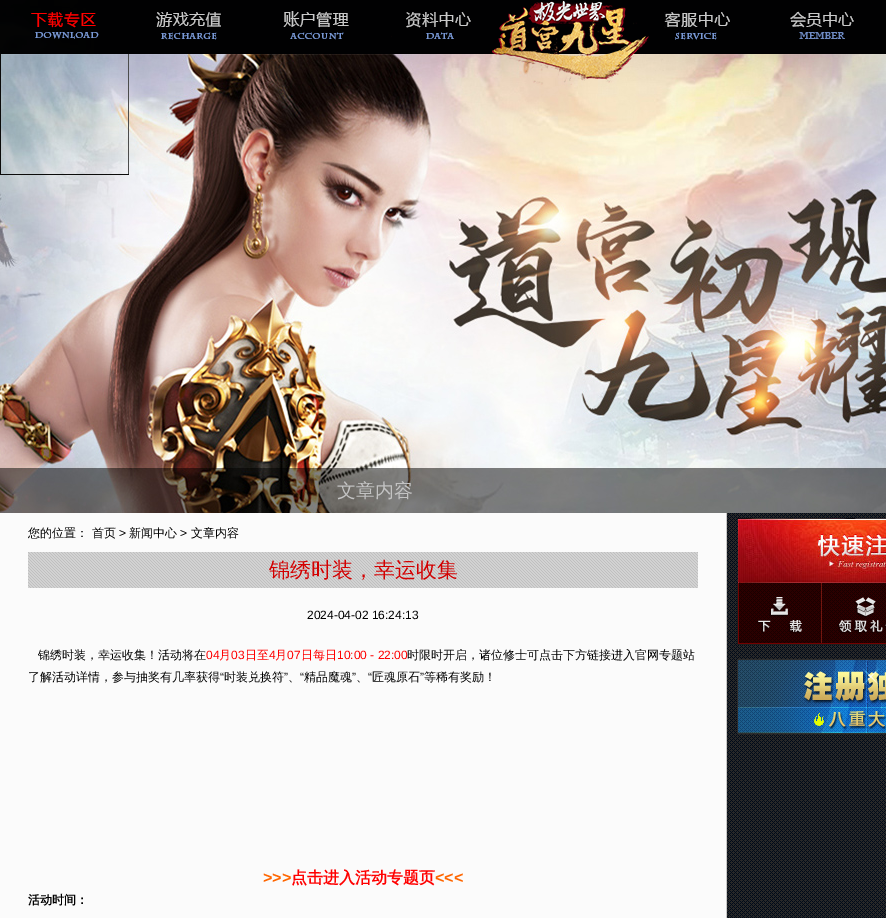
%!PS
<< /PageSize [886 918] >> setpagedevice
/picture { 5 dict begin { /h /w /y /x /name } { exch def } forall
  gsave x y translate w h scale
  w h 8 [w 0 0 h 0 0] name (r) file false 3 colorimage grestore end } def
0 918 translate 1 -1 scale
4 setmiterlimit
0.984 setgray
0 0 886 918 rectfill
(img1.rgb) 0 0 882 54 picture
(img2.rgb) 0 0 126 54 picture
(img9.rgb) 0 54 886 459 picture
0.298 setgray
128 54 1 121 rectfill
0.043 0.043 0.039 setrgbcolor
0 174 129 1 rectfill
0 54 1 121 rectfill
(img3.rgb) 126 0 126 54 picture
(img4.rgb) 252 0 126 54 picture
(img5.rgb) 378 0 126 71 picture
(img6.rgb) 504 0 126 85 picture
(img7.rgb) 630 0 126 71 picture
(img8.rgb) 756 0 126 54 picture
0.008 setgray
882 0 4 54 rectfill
/WenQuanYiZenHei-Medium [19 0 0 -19 0 0] selectfont
0.765 setgray
337 497 moveto (文章内容) show
/WenQuanYiZenHei-Medium [12 0 0 -12 0 0] selectfont
0 setgray
28 537 moveto (您的位置： 首页) show
/LiberationSans-Regular [12 0 0 -12 0 0] selectfont
119 537 moveto (>) show
/WenQuanYiZenHei-Medium [12 0 0 -12 0 0] selectfont
129 537 moveto (新闻中心) show
/LiberationSans-Regular [12 0 0 -12 0 0] selectfont
180 537 moveto (>) show
/WenQuanYiZenHei-Medium [12 0 0 -12 0 0] selectfont
191 537 moveto (文章内容) show
(img10.rgb) 28 552 670 36 picture
/WenQuanYiZenHei-Medium [21 0 0 -21 0 0] selectfont
0.827 0 0 setrgbcolor
269 577 moveto (锦绣时装，幸运收集) show
/LiberationSans-Regular [12 0 0 -12 0 0] selectfont
0 setgray
307 619 moveto (2024-04-02 16:24:13) show
/WenQuanYiZenHei-Medium [12 0 0 -12 0 0] selectfont
38 659 moveto (锦绣时装，幸运收集！活动将在) show
/LiberationSans-Regular [12 0 0 -12 0 0] selectfont
1 0 0 setrgbcolor
206 659 moveto (04) show
/WenQuanYiZenHei-Medium [12 0 0 -12 0 0] selectfont
219 659 moveto (月) show
/LiberationSans-Regular [12 0 0 -12 0 0] selectfont
231 659 moveto (03) show
/WenQuanYiZenHei-Medium [12 0 0 -12 0 0] selectfont
245 659 moveto (日至) show
/LiberationSans-Regular [12 0 0 -12 0 0] selectfont
269 659 moveto (4) show
/WenQuanYiZenHei-Medium [12 0 0 -12 0 0] selectfont
275 659 moveto (月) show
/LiberationSans-Regular [12 0 0 -12 0 0] selectfont
287 659 moveto (07) show
/WenQuanYiZenHei-Medium [12 0 0 -12 0 0] selectfont
301 659 moveto (日每日) show
/LiberationSans-Regular [12 0 0 -12 0 0] selectfont
337 659 moveto (10:00 - 22:00) show
/WenQuanYiZenHei-Medium [12 0 0 -12 0 0] selectfont
0 setgray
407 659 moveto (时限时开启，诸位修士可点击下方链接进入官网专题站) show
28 681 moveto (了解活动详情，参与抽奖有几率获得) show
/LiberationSans-Regular [12 0 0 -12 0 0] selectfont
220 681 moveto (“) show
/WenQuanYiZenHei-Medium [12 0 0 -12 0 0] selectfont
224 681 moveto (时装兑换符) show
/LiberationSans-Regular [12 0 0 -12 0 0] selectfont
284 681 moveto (”) show
300 681 moveto (“) show
/WenQuanYiZenHei-Medium [12 0 0 -12 0 0] selectfont
304 681 moveto (精品魔魂) show
/LiberationSans-Regular [12 0 0 -12 0 0] selectfont
352 681 moveto (”) show
368 681 moveto (“) show
/WenQuanYiZenHei-Medium [12 0 0 -12 0 0] selectfont
372 681 moveto (匠魂原石) show
/LiberationSans-Regular [12 0 0 -12 0 0] selectfont
420 681 moveto (”) show
/WenQuanYiZenHei-Medium [12 0 0 -12 0 0] selectfont
424 681 moveto (等稀有奖励！) show
288 681 moveto (、) show
356 681 moveto (、) show
/LiberationSans-Bold [16 0 0 -16 0 0] selectfont
1 0.4 0 setrgbcolor
263 883 moveto (>>>) show
/WenQuanYiZenHei-Bold [16 0 0 -16 0 0] selectfont
1 0 0 setrgbcolor
291 883 moveto (点击进入活动专题页) show
/LiberationSans-Bold [16 0 0 -16 0 0] selectfont
1 0.4 0 setrgbcolor
435 883 moveto (<<<) show
/WenQuanYiZenHei-Bold [12 0 0 -12 0 0] selectfont
0 setgray
28 904 moveto (活动时间：) show
0.157 setgray
727 513 159 405 rectfill
(img11.rgb) 727 513 159 405 picture
0.784 setgray
726 513 1 405 rectfill
(img12.rgb) 738 518 148 65 picture
0.114 setgray
737 644 149 1 rectfill
737 583 1 62 rectfill
0.451 0 0 setrgbcolor
738 643 148 1 rectfill
738 583 1 61 rectfill
(img13.rgb) 739 583 82 60 picture
(img14.rgb) 821 583 65 60 picture
0.173 setgray
737.5 659.5 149 74 rectstroke
(img15.rgb) 738 660 148 73 picture
showpage
